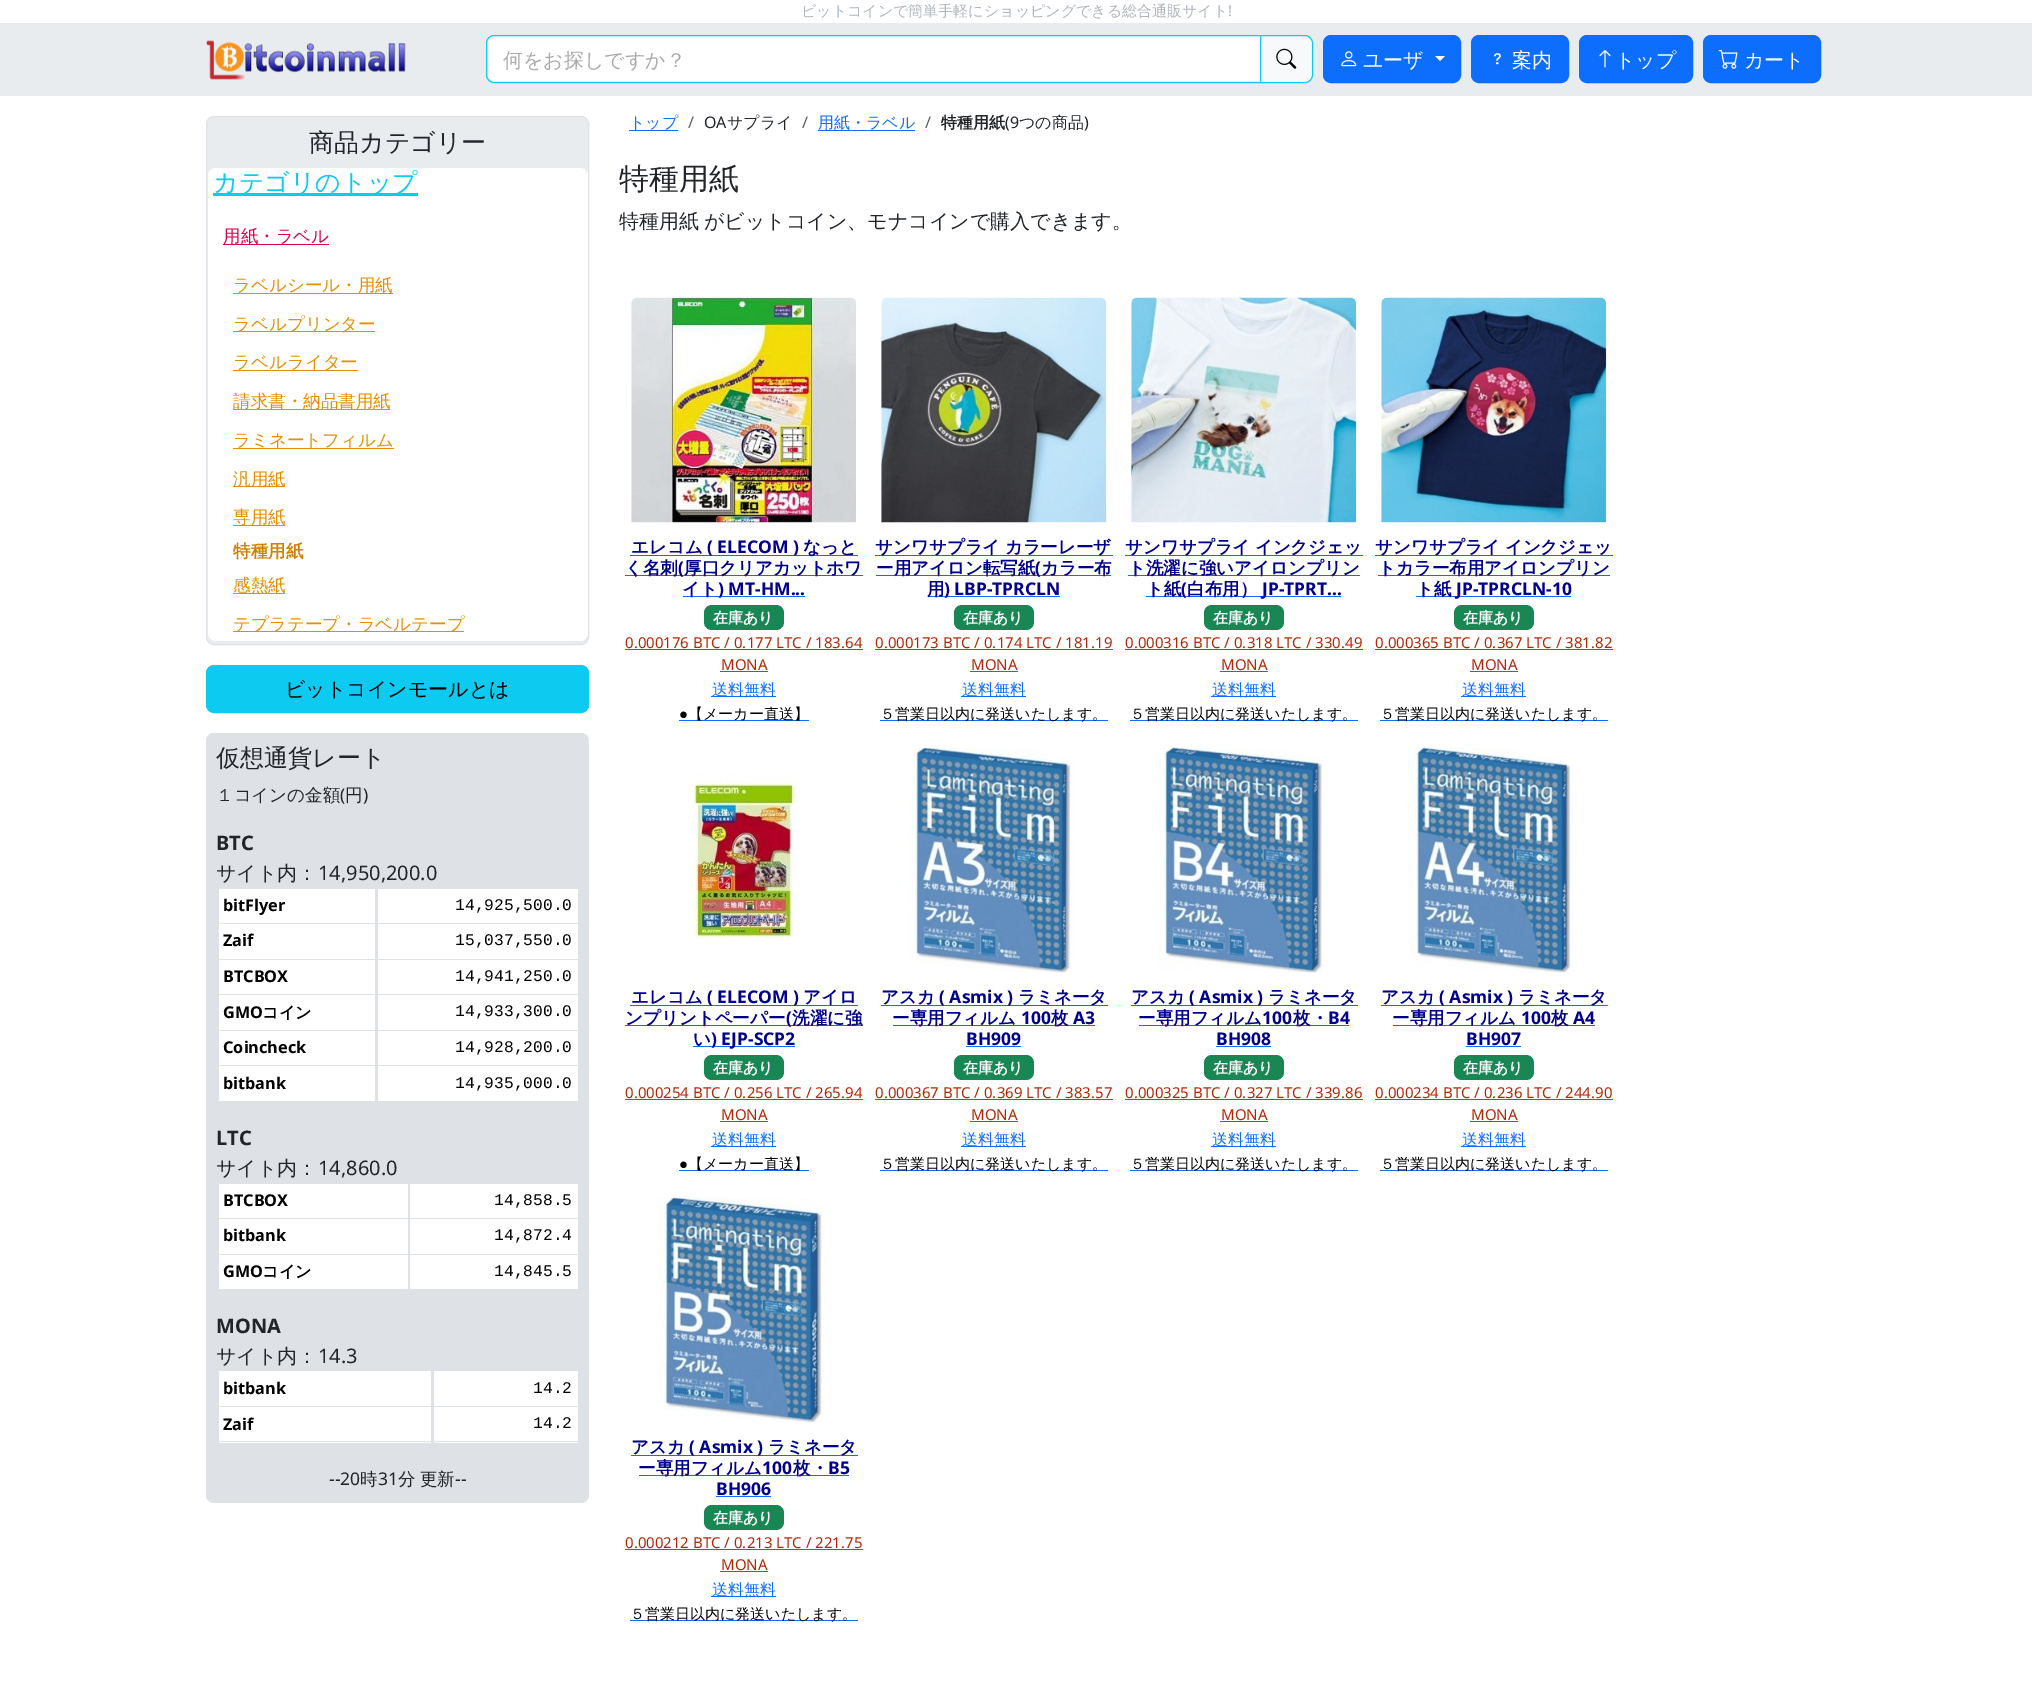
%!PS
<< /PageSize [2032 1692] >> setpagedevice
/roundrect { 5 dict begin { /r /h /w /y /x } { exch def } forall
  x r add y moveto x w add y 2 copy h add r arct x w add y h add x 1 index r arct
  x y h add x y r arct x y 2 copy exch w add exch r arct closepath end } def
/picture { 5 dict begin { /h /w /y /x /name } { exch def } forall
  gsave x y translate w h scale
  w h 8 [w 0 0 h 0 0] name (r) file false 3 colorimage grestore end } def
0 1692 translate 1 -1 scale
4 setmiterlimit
1 setgray
0 0 2032 1692 rectfill
/WenQuanYiZenHei-Medium [15 0 0 -15 0 0] selectfont
0.678 0.71 0.741 setrgbcolor
801 16 moveto (ビットコインで簡単手軽にショッピングできる総合通販サイト) show
/NotoSans-Regular [15 0 0 -15 0 0] selectfont
1228 16 moveto (!) show
0.914 0.925 0.937 setrgbcolor
0 23 2032 73 rectfill
(img1.rgb) 206 40 200 40 picture
1 setgray
newpath 494 36 moveto 1260 36 lineto 1260 81 lineto 494 81 lineto 490.5 81 488 78.5 488 75 curveto 488 42 lineto 488 38.5 490.5 36 494 36 curveto closepath fill
0.051 0.792 0.941 setrgbcolor
newpath 494 35.5 moveto 1260.5 35.5 lineto 1260.5 82.5 lineto 494 82.5 lineto 490 82.5 486.5 79 486.5 75 curveto 486.5 43 lineto 486.5 39 490 35.5 494 35.5 curveto closepath stroke
/WenQuanYiZenHei-Medium [20 0 0 -20 0 0] selectfont
0.667 setgray
503 67 moveto (何をお探しですか？) show
0.973 0.976 0.98 setrgbcolor
newpath 1260.5 35.5 moveto 1305 35.5 lineto 1309 35.5 1312.5 39 1312.5 43 curveto 1312.5 75 lineto 1312.5 79 1309 82.5 1305 82.5 curveto 1260.5 82.5 lineto closepath gsave fill grestore
0.051 0.792 0.941 setrgbcolor
stroke
(img2.rgb) 1276 48 21 21 picture
0.051 0.431 0.992 setrgbcolor
1323.5 35.5 137 47 7.5 roundrect gsave fill grestore
stroke
(img3.rgb) 1341 51 16 16 picture
1 setgray
1363 67 moveto (ユーザ) show
newpath 1435 56 moveto 1445 56 lineto 1440 61 lineto closepath fill
0.051 0.431 0.992 setrgbcolor
1471.5 35.5 97 47 7.5 roundrect gsave fill grestore
stroke
(img4.rgb) 1494 53 7 12 picture
1 setgray
1512 67 moveto (案内) show
0.051 0.431 0.992 setrgbcolor
1579.5 35.5 113 47 7.5 roundrect gsave fill grestore
stroke
(img5.rgb) 1599 50 12 18 picture
1 setgray
1615 67 moveto (トップ) show
0.051 0.431 0.992 setrgbcolor
1703.5 35.5 117 47 7.5 roundrect gsave fill grestore
stroke
(img6.rgb) 1718 50 20 19 picture
1 setgray
1744 67 moveto (カート) show
0.914 0.925 0.937 setrgbcolor
206.5 116.5 382 528 7.5 roundrect gsave fill grestore
0.871 0.886 0.902 setrgbcolor
stroke
/WenQuanYiZenHei-Medium [25 0 0 -25 0 0] selectfont
0.129 0.145 0.161 setrgbcolor
309 151 moveto (商品カテゴリー) show
1 setgray
208 168 380 473 8 roundrect fill
0.051 0.792 0.941 setrgbcolor
213 193 205 3 rectfill
213 191 moveto (カテゴリのトップ) show
0.851 0 0.29 setrgbcolor
223 244 106 1 rectfill
/WenQuanYiZenHei-Medium [17.5 0 0 -17.5 0 0] selectfont
223 242 moveto (用紙・ラベル) show
0.894 0.557 0 setrgbcolor
233 293 160 1 rectfill
233 291 moveto (ラベルシール・用紙) show
233 331 142 1 rectfill
233 330 moveto (ラベルプリンター) show
233 370 125 1 rectfill
233 368 moveto (ラベルライター) show
233 409 157 1 rectfill
233 407 moveto (請求書・納品書用紙) show
233 448 161 1 rectfill
233 446 moveto (ラミネートフィルム) show
233 486 52 1 rectfill
233 485 moveto (汎用紙) show
233 525 52 1 rectfill
233 523 moveto (専用紙) show
/WenQuanYiZenHei-Bold [17.5 0 0 -17.5 0 0] selectfont
0.816 0.506 0 setrgbcolor
233 557 moveto (特種用紙) show
0.894 0.557 0 setrgbcolor
233 593 52 1 rectfill
/WenQuanYiZenHei-Medium [17.5 0 0 -17.5 0 0] selectfont
233 591 moveto (感熱紙) show
233 631 231 1 rectfill
233 630 moveto (テプラテープ・ラベルテープ) show
0.051 0.792 0.941 setrgbcolor
206.5 665.5 382 47 7.5 roundrect gsave fill grestore
stroke
/WenQuanYiZenHei-Medium [20 0 0 -20 0 0] selectfont
0 setgray
285 696 moveto (ビットコインモールとは) show
0.871 0.886 0.902 setrgbcolor
206 733 383 770 8 roundrect fill
/WenQuanYiZenHei-Medium [24 0 0 -24 0 0] selectfont
0.129 0.145 0.161 setrgbcolor
216 766 moveto (仮想通貨レート) show
/WenQuanYiZenHei-Medium [17.5 0 0 -17.5 0 0] selectfont
216 801 moveto (１コインの金額 円) show
/NotoSans-Regular [17.5 0 0 -17.5 0 0] selectfont
340 801 moveto (\() show
363 801 moveto (\)) show
/NotoSans-Bold [20 0 0 -20 0 0] selectfont
216 850 moveto (BTC) show
/WenQuanYiZenHei-Medium [20 0 0 -20 0 0] selectfont
216 880 moveto (サイト内：) show
/NotoSans-Regular [20 0 0 -20 0 0] selectfont
318 880 moveto (14,950,200.0) show
1 setgray
219 889 156 34 rectfill
/NotoSans-Bold [16.25 0 0 -16.25 0 0] selectfont
0 setgray
223 911 moveto (bitFlyer) show
1 setgray
378 889 200 34 rectfill
/LiberationMono-Regular [16.25 0 0 -16.25 0 0] selectfont
0 setgray
455 910 moveto (14,925,500.0) show
1 setgray
219 924 156 35 rectfill
/NotoSans-Bold [16.25 0 0 -16.25 0 0] selectfont
0 setgray
223 946 moveto (Zaif) show
1 setgray
378 924 200 35 rectfill
/LiberationMono-Regular [16.25 0 0 -16.25 0 0] selectfont
0 setgray
455 945 moveto (15,037,550.0) show
1 setgray
219 960 156 34 rectfill
/NotoSans-Bold [16.25 0 0 -16.25 0 0] selectfont
0 setgray
223 982 moveto (BTCBOX) show
1 setgray
378 960 200 34 rectfill
/LiberationMono-Regular [16.25 0 0 -16.25 0 0] selectfont
0 setgray
455 981 moveto (14,941,250.0) show
1 setgray
219 995 156 35 rectfill
/NotoSans-Bold [16.25 0 0 -16.25 0 0] selectfont
0 setgray
223 1018 moveto (GMO) show
/WenQuanYiZenHei-Bold [16.25 0 0 -16.25 0 0] selectfont
262 1018 moveto (コイン) show
1 setgray
378 995 200 35 rectfill
/LiberationMono-Regular [16.25 0 0 -16.25 0 0] selectfont
0 setgray
455 1016 moveto (14,933,300.0) show
1 setgray
219 1031 156 34 rectfill
/NotoSans-Bold [16.25 0 0 -16.25 0 0] selectfont
0 setgray
223 1053 moveto (Coincheck) show
1 setgray
378 1031 200 34 rectfill
/LiberationMono-Regular [16.25 0 0 -16.25 0 0] selectfont
0 setgray
455 1052 moveto (14,928,200.0) show
1 setgray
219 1066 156 35 rectfill
/NotoSans-Bold [16.25 0 0 -16.25 0 0] selectfont
0 setgray
223 1089 moveto (bitbank) show
1 setgray
378 1066 200 35 rectfill
/LiberationMono-Regular [16.25 0 0 -16.25 0 0] selectfont
0 setgray
455 1088 moveto (14,935,000.0) show
/NotoSans-Bold [20 0 0 -20 0 0] selectfont
0.129 0.145 0.161 setrgbcolor
216 1145 moveto (LTC) show
/WenQuanYiZenHei-Medium [20 0 0 -20 0 0] selectfont
216 1175 moveto (サイト内：) show
/NotoSans-Regular [20 0 0 -20 0 0] selectfont
318 1175 moveto (14,860.0) show
1 setgray
219 1184 189 34 rectfill
/NotoSans-Bold [16.25 0 0 -16.25 0 0] selectfont
0 setgray
223 1206 moveto (BTCBOX) show
1 setgray
410 1184 168 34 rectfill
/LiberationMono-Regular [16.25 0 0 -16.25 0 0] selectfont
0 setgray
494 1205 moveto (14,858.5) show
1 setgray
219 1219 189 35 rectfill
/NotoSans-Bold [16.25 0 0 -16.25 0 0] selectfont
0 setgray
223 1241 moveto (bitbank) show
1 setgray
410 1219 168 35 rectfill
/LiberationMono-Regular [16.25 0 0 -16.25 0 0] selectfont
0 setgray
494 1240 moveto (14,872.4) show
1 setgray
219 1255 189 34 rectfill
/NotoSans-Bold [16.25 0 0 -16.25 0 0] selectfont
0 setgray
223 1277 moveto (GMO) show
/WenQuanYiZenHei-Bold [16.25 0 0 -16.25 0 0] selectfont
262 1277 moveto (コイン) show
1 setgray
410 1255 168 34 rectfill
/LiberationMono-Regular [16.25 0 0 -16.25 0 0] selectfont
0 setgray
494 1276 moveto (14,845.5) show
/NotoSans-Bold [20 0 0 -20 0 0] selectfont
0.129 0.145 0.161 setrgbcolor
216 1333 moveto (MONA) show
/WenQuanYiZenHei-Medium [20 0 0 -20 0 0] selectfont
216 1363 moveto (サイト内：) show
/NotoSans-Regular [20 0 0 -20 0 0] selectfont
318 1363 moveto (14.3) show
1 setgray
219 1371 212 35 rectfill
/NotoSans-Bold [16.25 0 0 -16.25 0 0] selectfont
0 setgray
223 1394 moveto (bitbank) show
1 setgray
434 1371 144 35 rectfill
/LiberationMono-Regular [16.25 0 0 -16.25 0 0] selectfont
0 setgray
533 1393 moveto (14.2) show
1 setgray
219 1407 212 36 rectfill
434 1407 144 36 rectfill
0.871 0.886 0.902 setrgbcolor
216 1441 363 1 rectfill
/NotoSans-Bold [16.25 0 0 -16.25 0 0] selectfont
0 setgray
223 1430 moveto (Zaif) show
/LiberationMono-Regular [16.25 0 0 -16.25 0 0] selectfont
533 1428 moveto (14.2) show
/NotoSans-Regular [17.5 0 0 -17.5 0 0] selectfont
0.129 0.145 0.161 setrgbcolor
329 1485 moveto (--20) show
/WenQuanYiZenHei-Medium [17.5 0 0 -17.5 0 0] selectfont
360 1485 moveto (時) show
/NotoSans-Regular [17.5 0 0 -17.5 0 0] selectfont
378 1485 moveto (31) show
/WenQuanYiZenHei-Medium [17.5 0 0 -17.5 0 0] selectfont
398 1485 moveto -1 0 32 (分 更新) widthshow
/NotoSans-Regular [17.5 0 0 -17.5 0 0] selectfont
455 1485 moveto (--) show
/WenQuanYiZenHei-Medium [16 0 0 -16 0 0] selectfont
0.051 0.431 0.992 setrgbcolor
629 128 moveto (トップ) show
629 130 49 1 rectfill
/NotoSans-Regular [16 0 0 -16 0 0] selectfont
0.349 0.361 0.373 setrgbcolor
688 128 moveto (/) show
0.129 0.145 0.161 setrgbcolor
704 128 moveto (OA) show
/WenQuanYiZenHei-Medium [16 0 0 -16 0 0] selectfont
727 128 moveto (サプライ) show
/NotoSans-Regular [16 0 0 -16 0 0] selectfont
0.349 0.361 0.373 setrgbcolor
802 128 moveto (/) show
/WenQuanYiZenHei-Medium [16 0 0 -16 0 0] selectfont
0.051 0.431 0.992 setrgbcolor
818 128 moveto (用紙・ラベル) show
818 130 97 1 rectfill
/NotoSans-Regular [16 0 0 -16 0 0] selectfont
0.349 0.361 0.373 setrgbcolor
925 128 moveto (/) show
/WenQuanYiZenHei-Bold [16 0 0 -16 0 0] selectfont
0.129 0.145 0.161 setrgbcolor
941 128 moveto (特種用紙) show
/NotoSans-Regular [16 0 0 -16 0 0] selectfont
1005 128 moveto (\(9) show
/WenQuanYiZenHei-Medium [16 0 0 -16 0 0] selectfont
1019 128 moveto (つの商品) show
/NotoSans-Regular [16 0 0 -16 0 0] selectfont
1084 128 moveto (\)) show
/WenQuanYiZenHei-Medium [30 0 0 -30 0 0] selectfont
619 189 moveto (特種用紙) show
/WenQuanYiZenHei-Medium [20 0 0 -20 0 0] selectfont
619 228 moveto -1 0 32 (特種用紙 がビットコイン、モナコインで購入できます。) widthshow
(img7.rgb) 631 297 225 226 picture
/WenQuanYiZenHei-Bold [17.5 0 0 -17.5 0 0] selectfont
0 0 0.545 setrgbcolor
631 553 moveto (エレコム) show
0.051 0.431 0.992 setrgbcolor
630 555 228 1 rectfill
/NotoSans-Bold [17.5 0 0 -17.5 0 0] selectfont
0 0 0.545 setrgbcolor
707 553 moveto (\( ELECOM \)) show
/WenQuanYiZenHei-Bold [17.5 0 0 -17.5 0 0] selectfont
803 553 moveto (なっと) show
0.051 0.431 0.992 setrgbcolor
625 575 238 1 rectfill
0 0 0.545 setrgbcolor
625 574 moveto (く名刺) show
/NotoSans-Bold [17.5 0 0 -17.5 0 0] selectfont
678 574 moveto (\() show
/WenQuanYiZenHei-Bold [17.5 0 0 -17.5 0 0] selectfont
684 574 moveto (厚口クリアカットホワ) show
0.051 0.431 0.992 setrgbcolor
683 596 122 1 rectfill
0 0 0.545 setrgbcolor
682 595 moveto (イト) show
/NotoSans-Bold [17.5 0 0 -17.5 0 0] selectfont
718 595 moveto (\) MT-HM...) show
0.098 0.529 0.329 setrgbcolor
704 605 80 25 8 roundrect fill
/WenQuanYiZenHei-Bold [15 0 0 -15 0 0] selectfont
1 setgray
713 623 moveto (在庫あり) show
/NotoSans-Regular [15 0 0 -15 0 0] selectfont
0.694 0.153 0.016 setrgbcolor
625 648 moveto (0.000176 BTC / 0.177 LTC / 183.64) show
0.051 0.431 0.992 setrgbcolor
625 649 238 1 rectfill
0.694 0.153 0.016 setrgbcolor
721 670 moveto (MONA) show
0.051 0.431 0.992 setrgbcolor
720 671 48 1 rectfill
711 696 65 1 rectfill
/WenQuanYiZenHei-Medium [16 0 0 -16 0 0] selectfont
712 695 moveto (送料無料) show
/LiberationSans-Regular [15 0 0 -15 0 0] selectfont
0 setgray
679 719 moveto (●) show
0.051 0.431 0.992 setrgbcolor
679 720 130 1 rectfill
/WenQuanYiZenHei-Medium [15 0 0 -15 0 0] selectfont
0 setgray
688 719 moveto (【メーカー直送】) show
(img8.rgb) 881 297 226 226 picture
0.051 0.431 0.992 setrgbcolor
875 555 238 1 rectfill
/WenQuanYiZenHei-Bold [17.5 0 0 -17.5 0 0] selectfont
0 0 0.545 setrgbcolor
875 553 moveto -1 0 32 (サンワサプライ カラーレーザ) widthshow
0.051 0.431 0.992 setrgbcolor
876 575 235 1 rectfill
0 0 0.545 setrgbcolor
876 574 moveto (ー用アイロン転写紙) show
/NotoSans-Bold [17.5 0 0 -17.5 0 0] selectfont
1035 574 moveto (\() show
/WenQuanYiZenHei-Bold [17.5 0 0 -17.5 0 0] selectfont
1041 574 moveto (カラー布) show
0.051 0.431 0.992 setrgbcolor
928 596 132 1 rectfill
0 0 0.545 setrgbcolor
927 595 moveto (用) show
/NotoSans-Bold [17.5 0 0 -17.5 0 0] selectfont
944 595 moveto (\) LBP-TPRCLN) show
0.098 0.529 0.329 setrgbcolor
954 605 80 25 8 roundrect fill
/WenQuanYiZenHei-Bold [15 0 0 -15 0 0] selectfont
1 setgray
963 623 moveto (在庫あり) show
/NotoSans-Regular [15 0 0 -15 0 0] selectfont
0.694 0.153 0.016 setrgbcolor
875 648 moveto (0.000173 BTC / 0.174 LTC / 181.19) show
0.051 0.431 0.992 setrgbcolor
875 649 238 1 rectfill
0.694 0.153 0.016 setrgbcolor
971 670 moveto (MONA) show
0.051 0.431 0.992 setrgbcolor
970 671 48 1 rectfill
961 696 65 1 rectfill
/WenQuanYiZenHei-Medium [16 0 0 -16 0 0] selectfont
962 695 moveto (送料無料) show
880 720 228 1 rectfill
/WenQuanYiZenHei-Medium [15 0 0 -15 0 0] selectfont
0 setgray
880 719 moveto (５営業日以内に発送いたします。) show
(img9.rgb) 1131 297 226 226 picture
0.051 0.431 0.992 setrgbcolor
1125 555 238 1 rectfill
/WenQuanYiZenHei-Bold [17.5 0 0 -17.5 0 0] selectfont
0 0 0.545 setrgbcolor
1125 553 moveto -1 0 32 (サンワサプライ インクジェッ) widthshow
0.051 0.431 0.992 setrgbcolor
1128 575 232 1 rectfill
0 0 0.545 setrgbcolor
1128 574 moveto (ト洗濯に強いアイロンプリン) show
0.051 0.431 0.992 setrgbcolor
1146 596 195 1 rectfill
0 0 0.545 setrgbcolor
1146 595 moveto (ト紙) show
/NotoSans-Bold [17.5 0 0 -17.5 0 0] selectfont
1181 595 moveto (\() show
/WenQuanYiZenHei-Bold [17.5 0 0 -17.5 0 0] selectfont
1187 595 moveto (白布用）) show
/NotoSans-Bold [17.5 0 0 -17.5 0 0] selectfont
1262 595 moveto (JP-TPRT...) show
0.098 0.529 0.329 setrgbcolor
1204 605 80 25 8 roundrect fill
/WenQuanYiZenHei-Bold [15 0 0 -15 0 0] selectfont
1 setgray
1213 623 moveto (在庫あり) show
/NotoSans-Regular [15 0 0 -15 0 0] selectfont
0.694 0.153 0.016 setrgbcolor
1125 648 moveto (0.000316 BTC / 0.318 LTC / 330.49) show
0.051 0.431 0.992 setrgbcolor
1125 649 238 1 rectfill
0.694 0.153 0.016 setrgbcolor
1221 670 moveto (MONA) show
0.051 0.431 0.992 setrgbcolor
1220 671 48 1 rectfill
1211 696 65 1 rectfill
/WenQuanYiZenHei-Medium [16 0 0 -16 0 0] selectfont
1212 695 moveto (送料無料) show
1130 720 228 1 rectfill
/WenQuanYiZenHei-Medium [15 0 0 -15 0 0] selectfont
0 setgray
1130 719 moveto (５営業日以内に発送いたします。) show
(img10.rgb) 1381 297 226 226 picture
0.051 0.431 0.992 setrgbcolor
1375 555 238 1 rectfill
/WenQuanYiZenHei-Bold [17.5 0 0 -17.5 0 0] selectfont
0 0 0.545 setrgbcolor
1375 553 moveto -1 0 32 (サンワサプライ インクジェッ) widthshow
0.051 0.431 0.992 setrgbcolor
1378 575 232 1 rectfill
0 0 0.545 setrgbcolor
1378 574 moveto (トカラー布用アイロンプリン) show
0.051 0.431 0.992 setrgbcolor
1416 596 155 1 rectfill
0 0 0.545 setrgbcolor
1416 595 moveto (ト紙) show
/NotoSans-Bold [17.5 0 0 -17.5 0 0] selectfont
1456 595 moveto (JP-TPRCLN-10) show
0.098 0.529 0.329 setrgbcolor
1454 605 80 25 8 roundrect fill
/WenQuanYiZenHei-Bold [15 0 0 -15 0 0] selectfont
1 setgray
1463 623 moveto (在庫あり) show
/NotoSans-Regular [15 0 0 -15 0 0] selectfont
0.694 0.153 0.016 setrgbcolor
1375 648 moveto (0.000365 BTC / 0.367 LTC / 381.82) show
0.051 0.431 0.992 setrgbcolor
1375 649 238 1 rectfill
0.694 0.153 0.016 setrgbcolor
1471 670 moveto (MONA) show
0.051 0.431 0.992 setrgbcolor
1470 671 48 1 rectfill
1461 696 65 1 rectfill
/WenQuanYiZenHei-Medium [16 0 0 -16 0 0] selectfont
1462 695 moveto (送料無料) show
1380 720 228 1 rectfill
/WenQuanYiZenHei-Medium [15 0 0 -15 0 0] selectfont
0 setgray
1380 719 moveto (５営業日以内に発送いたします。) show
(img11.rgb) 686 773 112 168 picture
/WenQuanYiZenHei-Bold [17.5 0 0 -17.5 0 0] selectfont
0 0 0.545 setrgbcolor
631 1003 moveto (エレコム) show
0.051 0.431 0.992 setrgbcolor
630 1005 228 1 rectfill
/NotoSans-Bold [17.5 0 0 -17.5 0 0] selectfont
0 0 0.545 setrgbcolor
707 1003 moveto (\( ELECOM \)) show
/WenQuanYiZenHei-Bold [17.5 0 0 -17.5 0 0] selectfont
803 1003 moveto (アイロ) show
0.051 0.431 0.992 setrgbcolor
625 1025 238 1 rectfill
0 0 0.545 setrgbcolor
625 1024 moveto (ンプリントペーパー) show
/NotoSans-Bold [17.5 0 0 -17.5 0 0] selectfont
786 1024 moveto (\() show
/WenQuanYiZenHei-Bold [17.5 0 0 -17.5 0 0] selectfont
792 1024 moveto (洗濯に強) show
693 1045 moveto (い) show
0.051 0.431 0.992 setrgbcolor
693 1046 102 1 rectfill
/NotoSans-Bold [17.5 0 0 -17.5 0 0] selectfont
0 0 0.545 setrgbcolor
711 1045 moveto (\) EJP-SCP2) show
0.098 0.529 0.329 setrgbcolor
704 1055 80 25 8 roundrect fill
/WenQuanYiZenHei-Bold [15 0 0 -15 0 0] selectfont
1 setgray
713 1073 moveto (在庫あり) show
/NotoSans-Regular [15 0 0 -15 0 0] selectfont
0.694 0.153 0.016 setrgbcolor
625 1098 moveto (0.000254 BTC / 0.256 LTC / 265.94) show
0.051 0.431 0.992 setrgbcolor
625 1099 238 1 rectfill
0.694 0.153 0.016 setrgbcolor
721 1120 moveto (MONA) show
0.051 0.431 0.992 setrgbcolor
720 1121 48 1 rectfill
711 1146 65 1 rectfill
/WenQuanYiZenHei-Medium [16 0 0 -16 0 0] selectfont
712 1145 moveto (送料無料) show
/LiberationSans-Regular [15 0 0 -15 0 0] selectfont
0 setgray
679 1169 moveto (●) show
0.051 0.431 0.992 setrgbcolor
679 1170 130 1 rectfill
/WenQuanYiZenHei-Medium [15 0 0 -15 0 0] selectfont
0 setgray
688 1169 moveto (【メーカー直送】) show
(img12.rgb) 908 747 166 226 picture
/WenQuanYiZenHei-Bold [17.5 0 0 -17.5 0 0] selectfont
0 0 0.545 setrgbcolor
881 1003 moveto (アスカ) show
0.051 0.431 0.992 setrgbcolor
881 1005 227 1 rectfill
/NotoSans-Bold [17.5 0 0 -17.5 0 0] selectfont
0 0 0.545 setrgbcolor
939 1003 moveto (\( Asmix \)) show
/WenQuanYiZenHei-Bold [17.5 0 0 -17.5 0 0] selectfont
1018 1003 moveto (ラミネータ) show
0.051 0.431 0.992 setrgbcolor
893 1025 202 1 rectfill
0 0 0.545 setrgbcolor
892 1024 moveto (ー専用フィルム) show
/NotoSans-Bold [17.5 0 0 -17.5 0 0] selectfont
1021 1024 moveto (100) show
/WenQuanYiZenHei-Bold [17.5 0 0 -17.5 0 0] selectfont
1051 1024 moveto (枚) show
/NotoSans-Bold [17.5 0 0 -17.5 0 0] selectfont
1073 1024 moveto (A3) show
966 1045 moveto (BH909) show
0.051 0.431 0.992 setrgbcolor
966 1046 55 1 rectfill
0.098 0.529 0.329 setrgbcolor
954 1055 80 25 8 roundrect fill
/WenQuanYiZenHei-Bold [15 0 0 -15 0 0] selectfont
1 setgray
963 1073 moveto (在庫あり) show
/NotoSans-Regular [15 0 0 -15 0 0] selectfont
0.694 0.153 0.016 setrgbcolor
875 1098 moveto (0.000367 BTC / 0.369 LTC / 383.57) show
0.051 0.431 0.992 setrgbcolor
875 1099 238 1 rectfill
0.694 0.153 0.016 setrgbcolor
971 1120 moveto (MONA) show
0.051 0.431 0.992 setrgbcolor
970 1121 48 1 rectfill
961 1146 65 1 rectfill
/WenQuanYiZenHei-Medium [16 0 0 -16 0 0] selectfont
962 1145 moveto (送料無料) show
880 1170 228 1 rectfill
/WenQuanYiZenHei-Medium [15 0 0 -15 0 0] selectfont
0 setgray
880 1169 moveto (５営業日以内に発送いたします。) show
(img13.rgb) 1157 747 167 226 picture
/WenQuanYiZenHei-Bold [17.5 0 0 -17.5 0 0] selectfont
0 0 0.545 setrgbcolor
1131 1003 moveto (アスカ) show
0.051 0.431 0.992 setrgbcolor
1131 1005 227 1 rectfill
/NotoSans-Bold [17.5 0 0 -17.5 0 0] selectfont
0 0 0.545 setrgbcolor
1189 1003 moveto (\( Asmix \)) show
/WenQuanYiZenHei-Bold [17.5 0 0 -17.5 0 0] selectfont
1268 1003 moveto (ラミネータ) show
0.051 0.431 0.992 setrgbcolor
1139 1025 210 1 rectfill
0 0 0.545 setrgbcolor
1138 1024 moveto (ー専用フィルム) show
/NotoSans-Bold [17.5 0 0 -17.5 0 0] selectfont
1262 1024 moveto (100) show
/WenQuanYiZenHei-Bold [17.5 0 0 -17.5 0 0] selectfont
1293 1024 moveto (枚・) show
/NotoSans-Bold [17.5 0 0 -17.5 0 0] selectfont
1328 1024 moveto (B4) show
1216 1045 moveto (BH908) show
0.051 0.431 0.992 setrgbcolor
1216 1046 55 1 rectfill
0.098 0.529 0.329 setrgbcolor
1204 1055 80 25 8 roundrect fill
/WenQuanYiZenHei-Bold [15 0 0 -15 0 0] selectfont
1 setgray
1213 1073 moveto (在庫あり) show
/NotoSans-Regular [15 0 0 -15 0 0] selectfont
0.694 0.153 0.016 setrgbcolor
1125 1098 moveto (0.000325 BTC / 0.327 LTC / 339.86) show
0.051 0.431 0.992 setrgbcolor
1125 1099 238 1 rectfill
0.694 0.153 0.016 setrgbcolor
1221 1120 moveto (MONA) show
0.051 0.431 0.992 setrgbcolor
1220 1121 48 1 rectfill
1211 1146 65 1 rectfill
/WenQuanYiZenHei-Medium [16 0 0 -16 0 0] selectfont
1212 1145 moveto (送料無料) show
1130 1170 228 1 rectfill
/WenQuanYiZenHei-Medium [15 0 0 -15 0 0] selectfont
0 setgray
1130 1169 moveto (５営業日以内に発送いたします。) show
(img14.rgb) 1407 747 167 226 picture
/WenQuanYiZenHei-Bold [17.5 0 0 -17.5 0 0] selectfont
0 0 0.545 setrgbcolor
1381 1003 moveto (アスカ) show
0.051 0.431 0.992 setrgbcolor
1381 1005 227 1 rectfill
/NotoSans-Bold [17.5 0 0 -17.5 0 0] selectfont
0 0 0.545 setrgbcolor
1439 1003 moveto (\( Asmix \)) show
/WenQuanYiZenHei-Bold [17.5 0 0 -17.5 0 0] selectfont
1518 1003 moveto (ラミネータ) show
0.051 0.431 0.992 setrgbcolor
1393 1025 202 1 rectfill
0 0 0.545 setrgbcolor
1392 1024 moveto (ー専用フィルム) show
/NotoSans-Bold [17.5 0 0 -17.5 0 0] selectfont
1521 1024 moveto (100) show
/WenQuanYiZenHei-Bold [17.5 0 0 -17.5 0 0] selectfont
1551 1024 moveto (枚) show
/NotoSans-Bold [17.5 0 0 -17.5 0 0] selectfont
1573 1024 moveto (A4) show
1466 1045 moveto (BH907) show
0.051 0.431 0.992 setrgbcolor
1466 1046 55 1 rectfill
0.098 0.529 0.329 setrgbcolor
1454 1055 80 25 8 roundrect fill
/WenQuanYiZenHei-Bold [15 0 0 -15 0 0] selectfont
1 setgray
1463 1073 moveto (在庫あり) show
/NotoSans-Regular [15 0 0 -15 0 0] selectfont
0.694 0.153 0.016 setrgbcolor
1375 1098 moveto (0.000234 BTC / 0.236 LTC / 244.90) show
0.051 0.431 0.992 setrgbcolor
1375 1099 238 1 rectfill
0.694 0.153 0.016 setrgbcolor
1471 1120 moveto (MONA) show
0.051 0.431 0.992 setrgbcolor
1470 1121 48 1 rectfill
1461 1146 65 1 rectfill
/WenQuanYiZenHei-Medium [16 0 0 -16 0 0] selectfont
1462 1145 moveto (送料無料) show
1380 1170 228 1 rectfill
/WenQuanYiZenHei-Medium [15 0 0 -15 0 0] selectfont
0 setgray
1380 1169 moveto (５営業日以内に発送いたします。) show
(img15.rgb) 657 1197 167 226 picture
/WenQuanYiZenHei-Bold [17.5 0 0 -17.5 0 0] selectfont
0 0 0.545 setrgbcolor
631 1453 moveto (アスカ) show
0.051 0.431 0.992 setrgbcolor
631 1455 227 1 rectfill
/NotoSans-Bold [17.5 0 0 -17.5 0 0] selectfont
0 0 0.545 setrgbcolor
689 1453 moveto (\( Asmix \)) show
/WenQuanYiZenHei-Bold [17.5 0 0 -17.5 0 0] selectfont
768 1453 moveto (ラミネータ) show
0.051 0.431 0.992 setrgbcolor
639 1475 210 1 rectfill
0 0 0.545 setrgbcolor
638 1474 moveto (ー専用フィルム) show
/NotoSans-Bold [17.5 0 0 -17.5 0 0] selectfont
762 1474 moveto (100) show
/WenQuanYiZenHei-Bold [17.5 0 0 -17.5 0 0] selectfont
793 1474 moveto (枚・) show
/NotoSans-Bold [17.5 0 0 -17.5 0 0] selectfont
828 1474 moveto (B5) show
716 1495 moveto (BH906) show
0.051 0.431 0.992 setrgbcolor
716 1496 55 1 rectfill
0.098 0.529 0.329 setrgbcolor
704 1505 80 25 8 roundrect fill
/WenQuanYiZenHei-Bold [15 0 0 -15 0 0] selectfont
1 setgray
713 1523 moveto (在庫あり) show
/NotoSans-Regular [15 0 0 -15 0 0] selectfont
0.694 0.153 0.016 setrgbcolor
625 1548 moveto (0.000212 BTC / 0.213 LTC / 221.75) show
0.051 0.431 0.992 setrgbcolor
625 1549 238 1 rectfill
0.694 0.153 0.016 setrgbcolor
721 1570 moveto (MONA) show
0.051 0.431 0.992 setrgbcolor
720 1571 48 1 rectfill
711 1596 65 1 rectfill
/WenQuanYiZenHei-Medium [16 0 0 -16 0 0] selectfont
712 1595 moveto (送料無料) show
630 1620 228 1 rectfill
/WenQuanYiZenHei-Medium [15 0 0 -15 0 0] selectfont
0 setgray
630 1619 moveto (５営業日以内に発送いたします。) show
showpage
